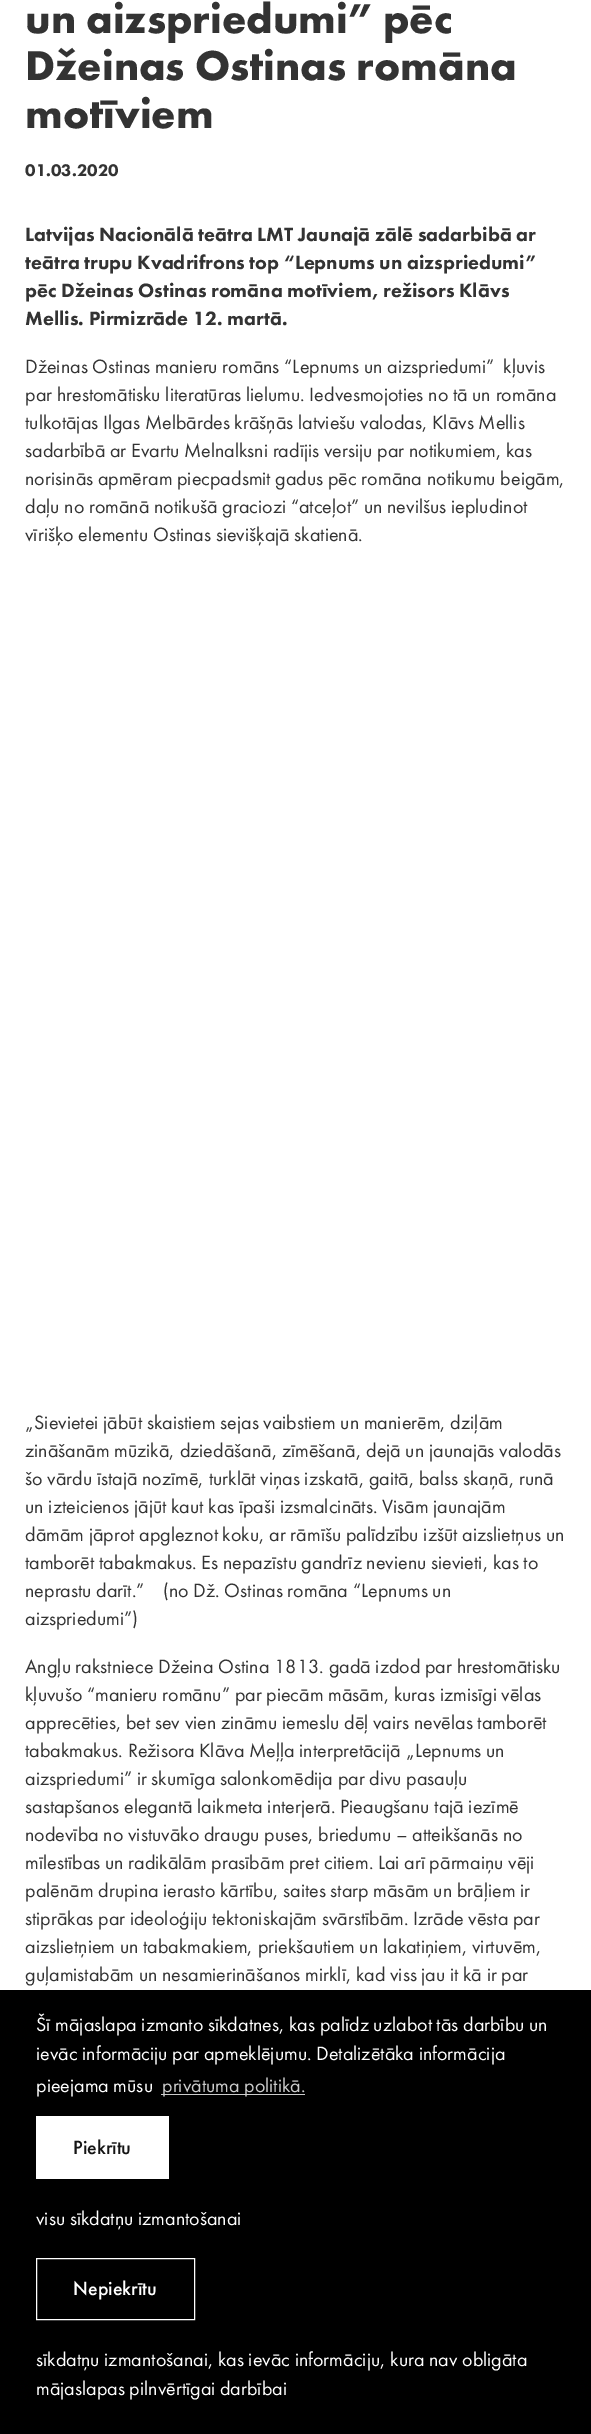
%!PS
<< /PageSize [591 2434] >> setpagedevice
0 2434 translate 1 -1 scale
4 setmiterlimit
1 setgray
0 0 591 2434 rectfill
/FuturaPT-Bold [43.25 0 0 -43.25 0 0] selectfont
0.2 setgray
25 33 moveto (un aizspriedumi” pēc) show
25 80 moveto (Džeinas Ostinas romāna) show
25 128 moveto (motīviem) show
/FuturaPT-Black [17.5 0 0 -17.5 0 0] selectfont
25 176 moveto (01.03.2020) show
/FuturaPT-Black [20 0 0 -20 0 0] selectfont
25 241 moveto (Latvijas Nacionālā teātra LMT Jaunajā zālē sadarbibā ar) show
25 269 moveto (teātra trupu Kvadrifrons top “Lepnums un aizspriedumi”) show
25 297 moveto (pēc Džeinas Ostinas romāna motīviem, režisors Klāvs) show
25 325 moveto (Mellis. Pirmizrāde 12. martā.) show
/FuturaPT-Regular [20 0 0 -20 0 0] selectfont
25 373 moveto (Džeinas Ostinas manieru romāns “Lepnums un aizspriedumi”  kļuvis) show
25 401 moveto (par hrestomātisku literatūras lielumu. Iedvesmojoties no tā un romāna) show
25 429 moveto (tulkotājas Ilgas Melbārdes krāšņās latviešu valodas, Klāvs Mellis) show
25 457 moveto (sadarbībā ar Evartu Melnalksni radījis versiju par notikumiem, kas) show
25 485 moveto (norisinās apmēram piecpadsmit gadus pēc romāna notikumu beigām,) show
25 513 moveto (daļu no romānā notikušā graciozi “atceļot” un nevilšus iepludinot) show
25 541 moveto (vīrišķo elementu Ostinas sievišķajā skatienā.) show
25 1429 moveto („Sievietei jābūt skaistiem sejas vaibstiem un manierēm, dziļām) show
25 1457 moveto (zināšanām mūzikā, dziedāšanā, zīmēšanā, dejā un jaunajās valodās) show
25 1485 moveto (šo vārdu īstajā nozīmē, turklāt viņas izskatā, gaitā, balss skaņā, runā) show
25 1513 moveto (un izteicienos jājūt kaut kas īpaši izsmalcināts. Visām jaunajām) show
25 1541 moveto (dāmām jāprot apgleznot koku, ar rāmīšu palīdzību izšūt aizslietņus un) show
25 1569 moveto (tamborēt tabakmakus. Es nepazīstu gandrīz nevienu sievieti, kas to) show
25 1597 moveto (neprastu darīt.”    \(no Dž. Ostinas romāna “Lepnums un) show
25 1625 moveto (aizspriedumi”\)) show
25 1673 moveto (Angļu rakstniece Džeina Ostina 1813. gadā izdod par hrestomātisku) show
25 1701 moveto (kļuvušo “manieru romānu” par piecām māsām, kuras izmisīgi vēlas) show
25 1729 moveto (apprecēties, bet sev vien zināmu iemeslu dēļ vairs nevēlas tamborēt) show
25 1757 moveto (tabakmakus. Režisora Klāva Meļļa interpretācijā „Lepnums un) show
25 1785 moveto (aizspriedumi” ir skumīga salonkomēdija par divu pasauļu) show
25 1813 moveto (sastapšanos elegantā laikmeta interjerā. Pieaugšanu tajā iezīmē) show
25 1841 moveto (nodevība no vistuvāko draugu puses, briedumu – atteikšanās no) show
25 1869 moveto (mīlestības un radikālām prasībām pret citiem. Lai arī pārmaiņu vēji) show
25 1897 moveto (palēnām drupina ierasto kārtību, saites starp māsām un brāļiem ir) show
25 1925 moveto (stiprākas par ideoloģiju tektoniskajām svārstībām. Izrāde vēsta par) show
25 1953 moveto (aizslietņiem un tabakmakiem, priekšautiem un lakatiņiem, virtuvēm,) show
25 1981 moveto (guļamistabām un nesamierināšanos mirklī, kad viss jau it kā ir par) show
0 setgray
0 1990 591 444 rectfill
1 setgray
36 2031 moveto (Šī mājaslapa izmanto sīkdatnes, kas palīdz uzlabot tās darbību un) show
36 2060 moveto (ievāc informāciju par apmeklējumu. Detalizētāka informācija) show
36 2092 moveto (pieejama mūsu) show
0.8 setgray
161 2094 144 1 rectfill
162 2092 moveto (privātuma politikā.) show
1 setgray
36 2116 133 63 rectfill
/FuturaPT-Medium [20 0 0 -20 0 0] selectfont
0.082 setgray
73 2154 moveto (Piekrītu) show
/FuturaPT-Regular [20 0 0 -20 0 0] selectfont
1 setgray
36 2225 moveto (visu sīkdatņu izmantošanai) show
36.5 2258.5 158 61 rectstroke
/FuturaPT-Medium [20 0 0 -20 0 0] selectfont
73 2295 moveto (Nepiekrītu) show
/FuturaPT-Regular [20 0 0 -20 0 0] selectfont
36 2366 moveto (sīkdatņu izmantošanai, kas ievāc informāciju, kura nav obligāta) show
36 2395 moveto (mājaslapas pilnvērtīgai darbībai) show
showpage
